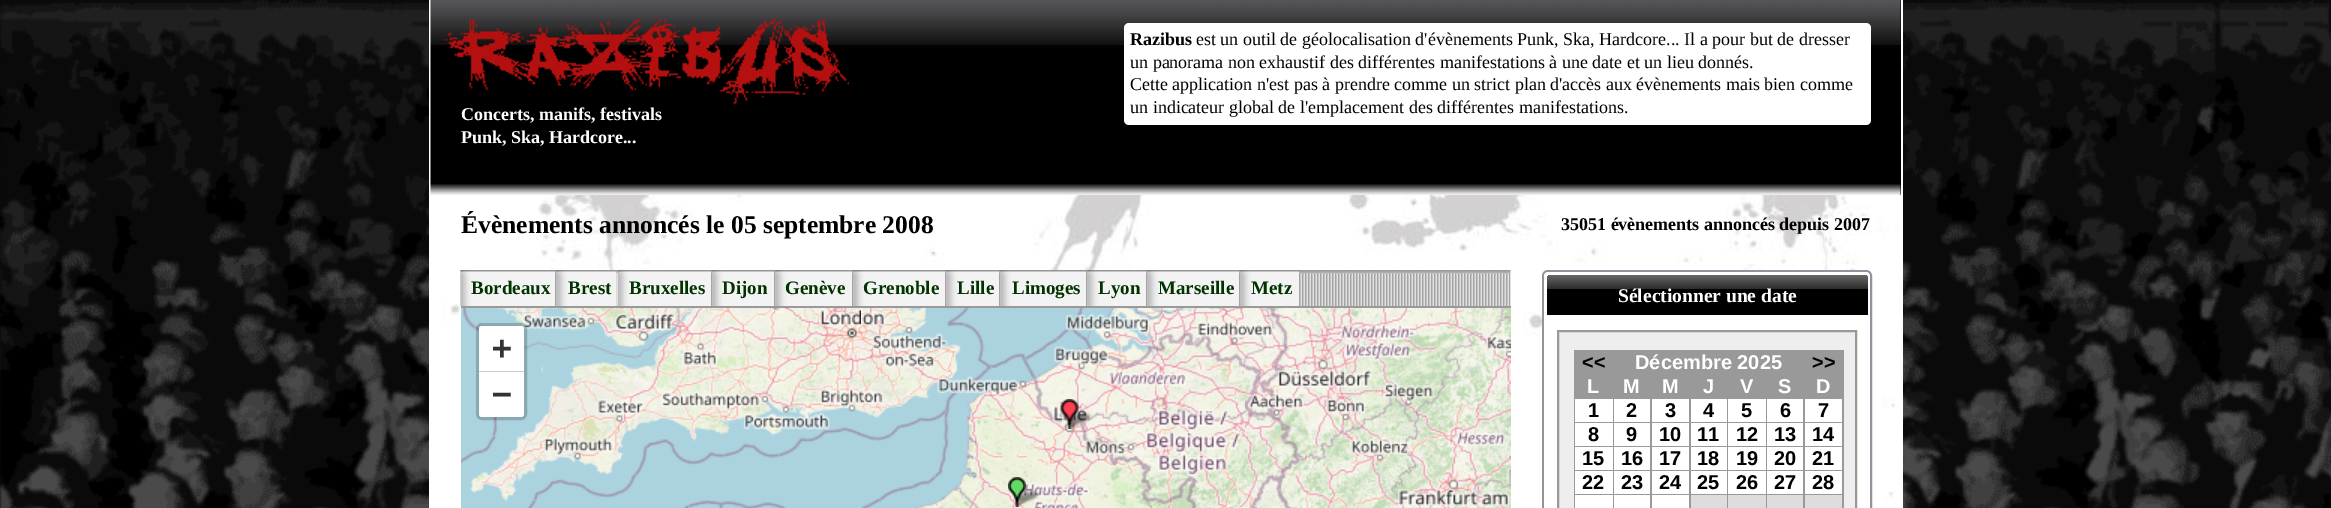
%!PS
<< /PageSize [2331 508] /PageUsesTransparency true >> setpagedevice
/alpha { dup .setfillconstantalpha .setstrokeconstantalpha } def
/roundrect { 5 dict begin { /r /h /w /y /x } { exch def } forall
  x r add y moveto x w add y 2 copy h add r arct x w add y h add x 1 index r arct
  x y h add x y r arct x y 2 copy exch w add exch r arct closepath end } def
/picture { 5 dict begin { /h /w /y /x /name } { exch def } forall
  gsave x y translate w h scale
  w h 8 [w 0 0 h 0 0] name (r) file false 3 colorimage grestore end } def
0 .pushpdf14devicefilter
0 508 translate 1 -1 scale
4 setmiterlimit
1 setgray
0 0 2331 508 rectfill
(img1.rgb) 0 0 2331 508 picture
(img2.rgb) 431 195 1470 313 picture
1901 0 2 508 rectfill
429 0 2 508 rectfill
0 setgray
1900 0 1 195 rectfill
(img3.rgb) 430 0 1471 195 picture
1 setgray
1124 23 747 102 5 roundrect fill
/LiberationSerif-Bold [18 0 0 -18 0 0] selectfont
0 setgray
1130 45 moveto (Razibus) show
/LiberationSerif-Regular [18 0 0 -18 0 0] selectfont
1196 45 moveto (est un outil de géolocalisation d'évènements Punk, Ska, Hardcore... Il a pour but de dresser) show
1130 68 moveto (un panorama non exhaustif des différentes manifestations à une date et un lieu donnés.) show
1130 90 moveto (Cette application n'est pas à prendre comme un strict plan d'accès aux évènements mais bien comme) show
1130 113 moveto (un indicateur global de l'emplacement des différentes manifestations.) show
(img4.rgb) 445 16 404 88 picture
/LiberationSerif-Bold [18 0 0 -18 0 0] selectfont
1 setgray
461 120 moveto (Concerts, manifs, festivals) show
461 143 moveto (Punk, Ska, Hardcore...) show
/LiberationSerif-Bold [25.5 0 0 -25.5 0 0] selectfont
0 setgray
461 233 moveto (Évènements annoncés le 05 septembre 2008) show
/LiberationSerif-Bold [18 0 0 -18 0 0] selectfont
1561 230 moveto (35051 évènements annoncés depuis 2007) show
(img5.rgb) 460 270 1051 36 picture
(img6.rgb) 460 270 95 36 picture
/LiberationSerif-Bold [19 0 0 -19 0 0] selectfont
0 0.2 0 setrgbcolor
471 294 moveto (Bordeaux) show
(img7.rgb) 556 270 61 36 picture
568 294 moveto (Brest) show
(img8.rgb) 618 270 93 36 picture
629 294 moveto (Bruxelles) show
(img9.rgb) 712 270 62 36 picture
722 294 moveto (Dijon) show
(img10.rgb) 775 270 77 36 picture
785 294 moveto (Genève) show
(img11.rgb) 853 270 92 36 picture
863 294 moveto (Grenoble) show
(img12.rgb) 946 270 53 36 picture
957 294 moveto (Lille) show
(img13.rgb) 1000 270 86 36 picture
1012 294 moveto (Limoges) show
(img14.rgb) 1087 270 59 36 picture
1098 294 moveto (Lyon) show
(img11.rgb) 1147 270 92 36 picture
1158 294 moveto (Marseille) show
(img15.rgb) 1240 270 59 36 picture
1251 294 moveto (Metz) show
0.6 setgray
461 306 1050 2 rectfill
(img16.rgb) 461 308 16 200 picture
(img17.rgb) 477 308 384 200 picture
(img18.rgb) 861 308 384 200 picture
(img19.rgb) 1245 308 266 200 picture
(img22.rgb) 1067 411 25 18 picture
(img20.rgb) 1060 399 19 30 picture
(img23.rgb) 1015 489 25 18 picture
(img21.rgb) 1008 477 18 30 picture
0.2 alpha
0 setgray
3 setlinewidth
477.5 324.5 48 94 4.5 roundrect stroke
1 alpha
1 setgray
newpath 482 326 moveto 521 326 lineto 522.5 326 524 327.5 524 329 curveto 524 372 lineto 479 372 lineto 479 329 lineto 479 327.5 480.5 326 482 326 curveto closepath fill
0.8 setgray
479 371 45 1 rectfill
/DejaVuSansMono-Bold [33 0 0 -33 0 0] selectfont
0.2 setgray
492 359 moveto (+) show
1 setgray
newpath 479 372 moveto 524 372 lineto 524 414 lineto 524 415.5 522.5 417 521 417 curveto 482 417 lineto 480.5 417 479 415.5 479 414 curveto closepath fill
0.2 setgray
492 405 moveto (−) show
0.569 0.58 0.616 setrgbcolor
2 setlinewidth
1543 271 328 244 5 roundrect stroke
1 setgray
newpath 1548 274 moveto 1866 274 lineto 1867 274 1868 275 1868 276 curveto 1868 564 lineto 1868 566 1867 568 1866 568 curveto 1548 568 lineto 1547 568 1546 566 1546 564 curveto 1546 276 lineto 1546 275 1547 274 1548 274 curveto closepath fill
newpath 1548 272 moveto 1866 272 lineto 1868 272 1870 274 1870 276 curveto 1870 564 lineto 1870 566 1868 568 1866 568 curveto 1548 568 lineto 1546 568 1544 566 1544 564 curveto 1544 276 lineto 1544 274 1546 272 1548 272 curveto closepath 1548 274 moveto 1866 274 lineto 1867 274 1868 275 1868 276 curveto 1868 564 lineto 1868 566 1867 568 1866 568 curveto 1548 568 lineto 1547 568 1546 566 1546 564 curveto 1546 276 lineto 1546 275 1547 274 1548 274 curveto closepath eofill
gsave newpath 1552 275 moveto 1863 275 lineto 1866 275 1868 277 1868 280 curveto 1868 315 lineto 1547 315 lineto 1547 280 lineto 1547 277 1549 275 1552 275 curveto closepath clip newpath
<< /ShadingType 2 /ColorSpace /DeviceRGB /Coords [1707 275 1707 315] /Extend [true true] /Function << /FunctionType 3 /Domain [0 1] /Functions [<< /FunctionType 2 /Domain [0 1] /C0 [0.408 0.408 0.408] /C1 [0.176 0.176 0.176] /N 1 >> << /FunctionType 2 /Domain [0 1] /C0 [0.176 0.176 0.176] /C1 [0 0 0] /N 1 >> << /FunctionType 2 /Domain [0 1] /C0 [0 0 0] /C1 [0 0 0] /N 1 >>] /Bounds [0.34 0.35] /Encode [0 1 0 1 0 1] >> >> shfill grestore
/LiberationSerif-Bold [19.5 0 0 -19.5 0 0] selectfont
1618 302 moveto (Sélectionner une date) show
0.933 setgray
newpath 1558 331 moveto 1856 331 lineto 1856 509 lineto 1558 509 lineto closepath gsave fill grestore
0.6 setgray
stroke
1574 350 270 158 rectfill
/LiberationSans-Bold [20 0 0 -20 0 0] selectfont
0 setgray
1582 369 moveto (<<) show
1 setgray
1635 369 moveto (Décembre 2025) show
0 setgray
1812 369 moveto (>>) show
1 setgray
1587 393 moveto (L) show
1623 393 moveto (M) show
1662 393 moveto (M) show
1703 393 moveto (J) show
1740 393 moveto (V) show
1778 393 moveto (S) show
1816 393 moveto (D) show
1575 399 38 23 rectfill
0 setgray
1588 417 moveto (1) show
1 setgray
1614 399 36 23 rectfill
0 setgray
1626 417 moveto (2) show
1 setgray
1652 399 37 23 rectfill
0 setgray
1665 417 moveto (3) show
1 setgray
1691 399 36 23 rectfill
0 setgray
1703 417 moveto (4) show
1 setgray
1728 399 38 23 rectfill
0 setgray
1741 417 moveto (5) show
1 setgray
1767 399 36 23 rectfill
0 setgray
1780 417 moveto (6) show
1 setgray
1805 399 37 23 rectfill
0 setgray
1818 417 moveto (7) show
1 setgray
1575 423 38 23 rectfill
0 setgray
1588 441 moveto (8) show
1 setgray
1614 423 36 23 rectfill
0 setgray
1626 441 moveto (9) show
1 setgray
1652 423 37 23 rectfill
0 setgray
1659 441 moveto (10) show
1 setgray
1691 423 36 23 rectfill
0 setgray
1697 441 moveto (11) show
1 setgray
1728 423 38 23 rectfill
0 setgray
1736 441 moveto (12) show
1 setgray
1767 423 36 23 rectfill
0 setgray
1774 441 moveto (13) show
1 setgray
1805 423 37 23 rectfill
0 setgray
1812 441 moveto (14) show
1 setgray
1575 447 38 23 rectfill
0 setgray
1582 465 moveto (15) show
1 setgray
1614 447 36 23 rectfill
0 setgray
1621 465 moveto (16) show
1 setgray
1652 447 37 23 rectfill
0 setgray
1659 465 moveto (17) show
1 setgray
1691 447 36 23 rectfill
0 setgray
1697 465 moveto (18) show
1 setgray
1728 447 38 23 rectfill
0 setgray
1736 465 moveto (19) show
1 setgray
1767 447 36 23 rectfill
0 setgray
1774 465 moveto (20) show
1 setgray
1805 447 37 23 rectfill
0 setgray
1812 465 moveto (21) show
1 setgray
1575 471 38 23 rectfill
0 setgray
1582 489 moveto (22) show
1 setgray
1614 471 36 23 rectfill
0 setgray
1621 489 moveto (23) show
1 setgray
1652 471 37 23 rectfill
0 setgray
1659 489 moveto (24) show
1 setgray
1691 471 36 23 rectfill
0 setgray
1697 489 moveto (25) show
1 setgray
1728 471 38 23 rectfill
0 setgray
1736 489 moveto (26) show
1 setgray
1767 471 36 23 rectfill
0 setgray
1774 489 moveto (27) show
1 setgray
1805 471 37 23 rectfill
0 setgray
1812 489 moveto (28) show
1 setgray
1575 495 38 13 rectfill
1614 495 36 13 rectfill
1652 495 37 13 rectfill
0.867 setgray
1691 495 36 13 rectfill
1728 495 38 13 rectfill
1767 495 36 13 rectfill
1805 495 37 13 rectfill
.poppdf14devicefilter showpage
